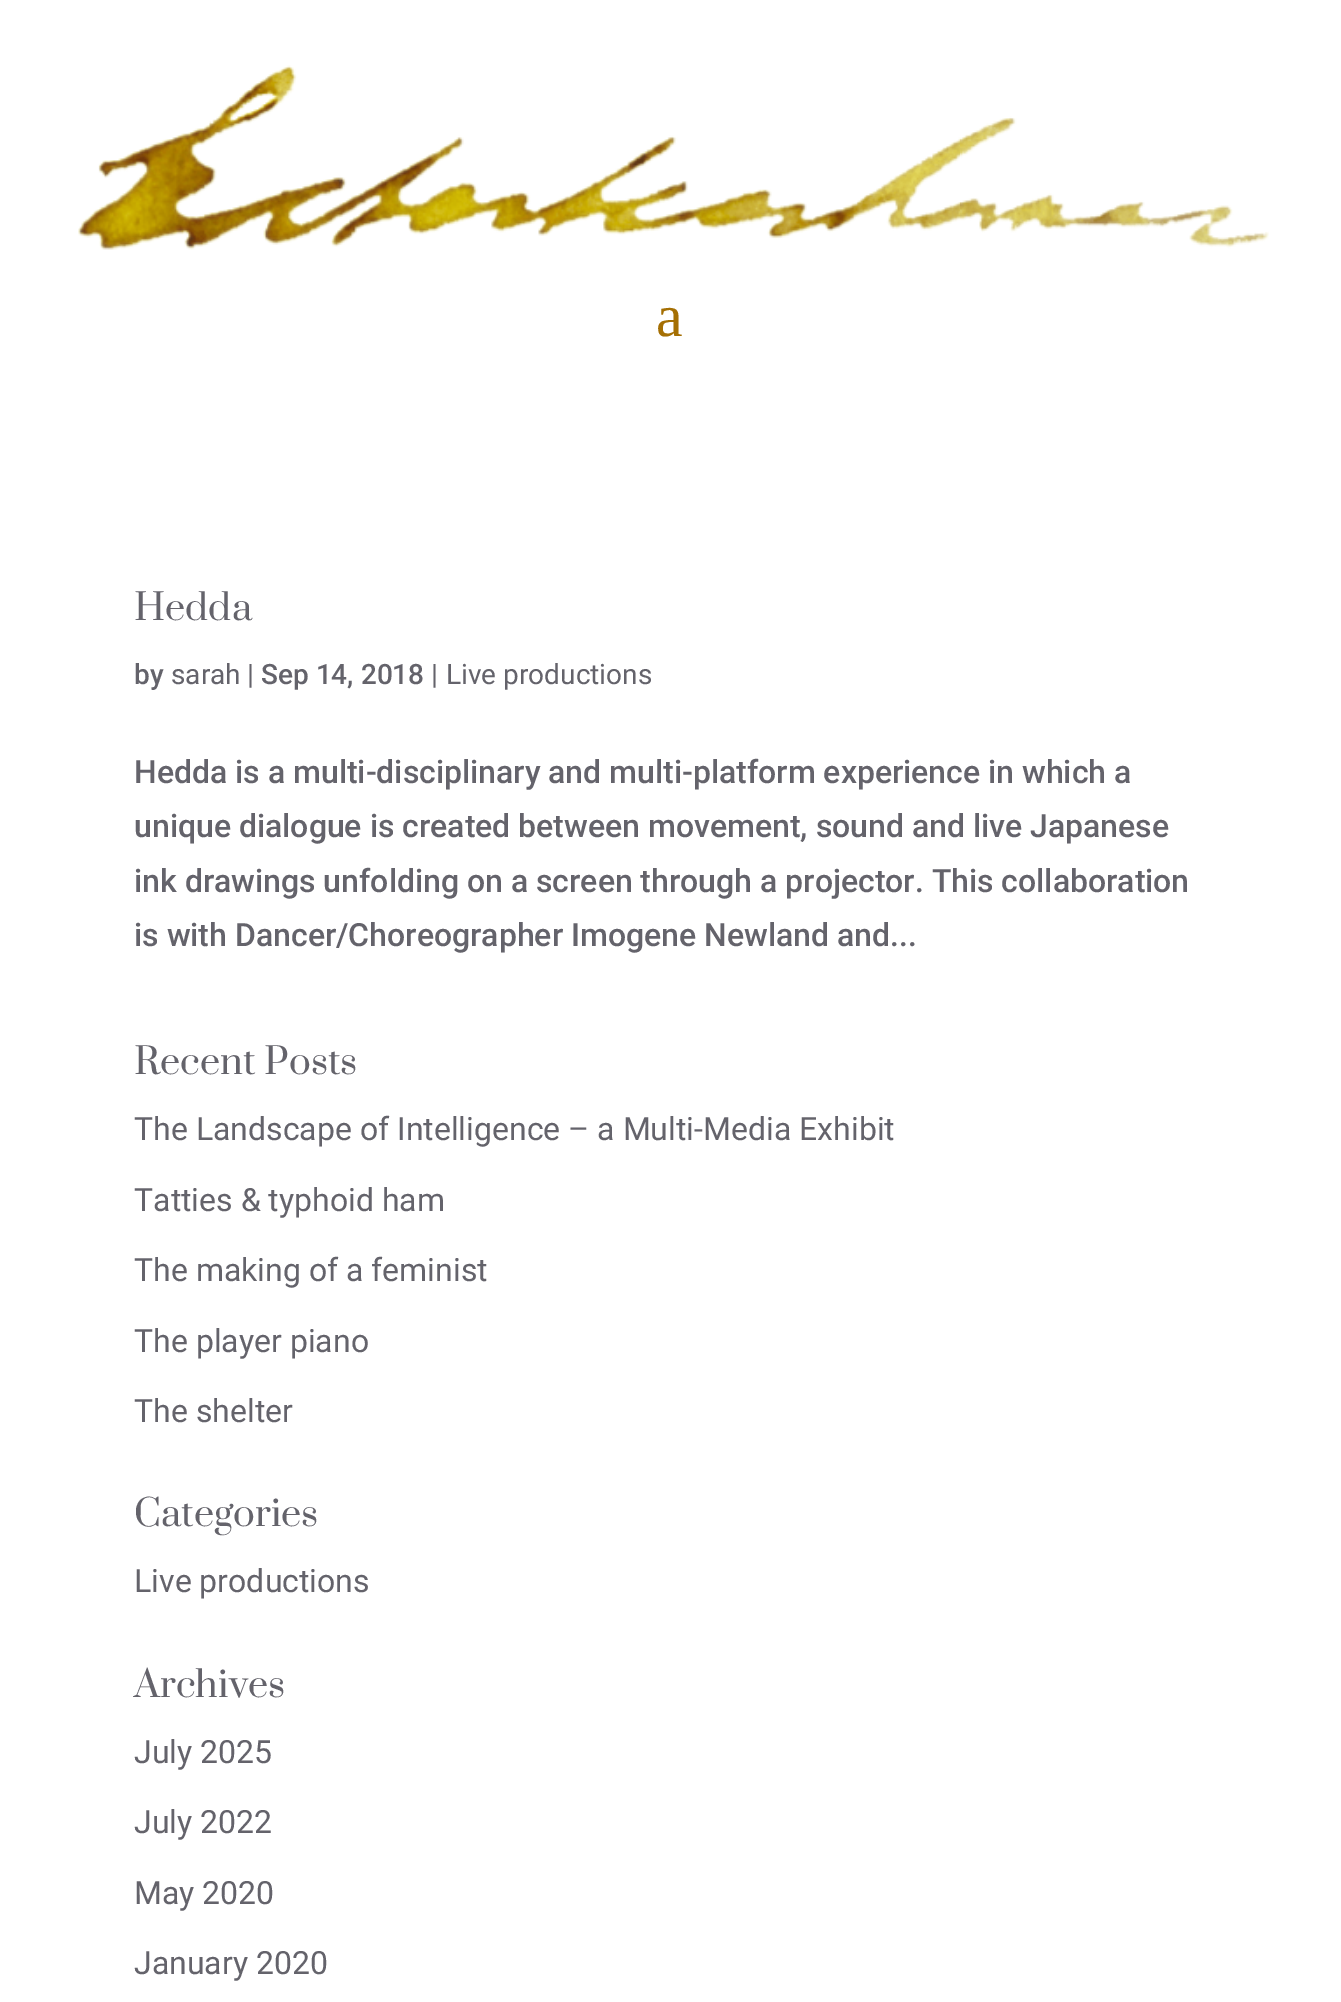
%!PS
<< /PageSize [1341 2002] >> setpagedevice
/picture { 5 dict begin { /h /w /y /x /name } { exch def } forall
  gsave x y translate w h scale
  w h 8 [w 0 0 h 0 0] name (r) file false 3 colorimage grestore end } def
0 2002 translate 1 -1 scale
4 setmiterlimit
1 setgray
0 0 1341 2002 rectfill
(img1.rgb) 78 65 1191 185 picture
/LiberationSerif-Regular [60 0 0 -60 0 0] selectfont
0.647 0.435 0.012 setrgbcolor
656 336 moveto (a) show
/Prata-Regular [36 0 0 -36 0 0] selectfont
0.392 0.388 0.42 setrgbcolor
134 620 moveto (Hedda) show
/Roboto-Medium [28 0 0 -28 0 0] selectfont
134 684 moveto (by) show
/Roboto-Regular [28 0 0 -28 0 0] selectfont
171 684 moveto (sarah) show
/Roboto-Medium [28 0 0 -28 0 0] selectfont
247 684 moveto (| Sep 14, 2018 |) show
/Roboto-Regular [28 0 0 -28 0 0] selectfont
446 684 moveto (Live productions) show
/Roboto-Medium [32 0 0 -32 0 0] selectfont
134 783 moveto (Hedda is a multi-disciplinary and multi-platform experience in which a) show
134 837 moveto (unique dialogue is created between movement, sound and live Japanese) show
134 892 moveto (ink drawings unfolding on a screen through a projector. This collaboration) show
134 946 moveto (is with Dancer/Choreographer Imogene Newland and...) show
/Prata-Regular [36 0 0 -36 0 0] selectfont
134 1074 moveto (Recent Posts) show
/Roboto-Regular [32 0 0 -32 0 0] selectfont
134 1140 moveto (The Landscape of Intelligence – a Multi-Media Exhibit) show
134 1211 moveto (Tatties & typhoid ham) show
134 1281 moveto (The making of a feminist) show
134 1352 moveto (The player piano) show
134 1422 moveto (The shelter) show
/Prata-Regular [36 0 0 -36 0 0] selectfont
134 1526 moveto (Categories) show
/Roboto-Regular [32 0 0 -32 0 0] selectfont
134 1592 moveto (Live productions) show
/Prata-Regular [36 0 0 -36 0 0] selectfont
134 1697 moveto (Archives) show
/Roboto-Regular [32 0 0 -32 0 0] selectfont
134 1763 moveto (July 2025) show
134 1833 moveto (July 2022) show
134 1904 moveto (May 2020) show
134 1974 moveto (January 2020) show
showpage
